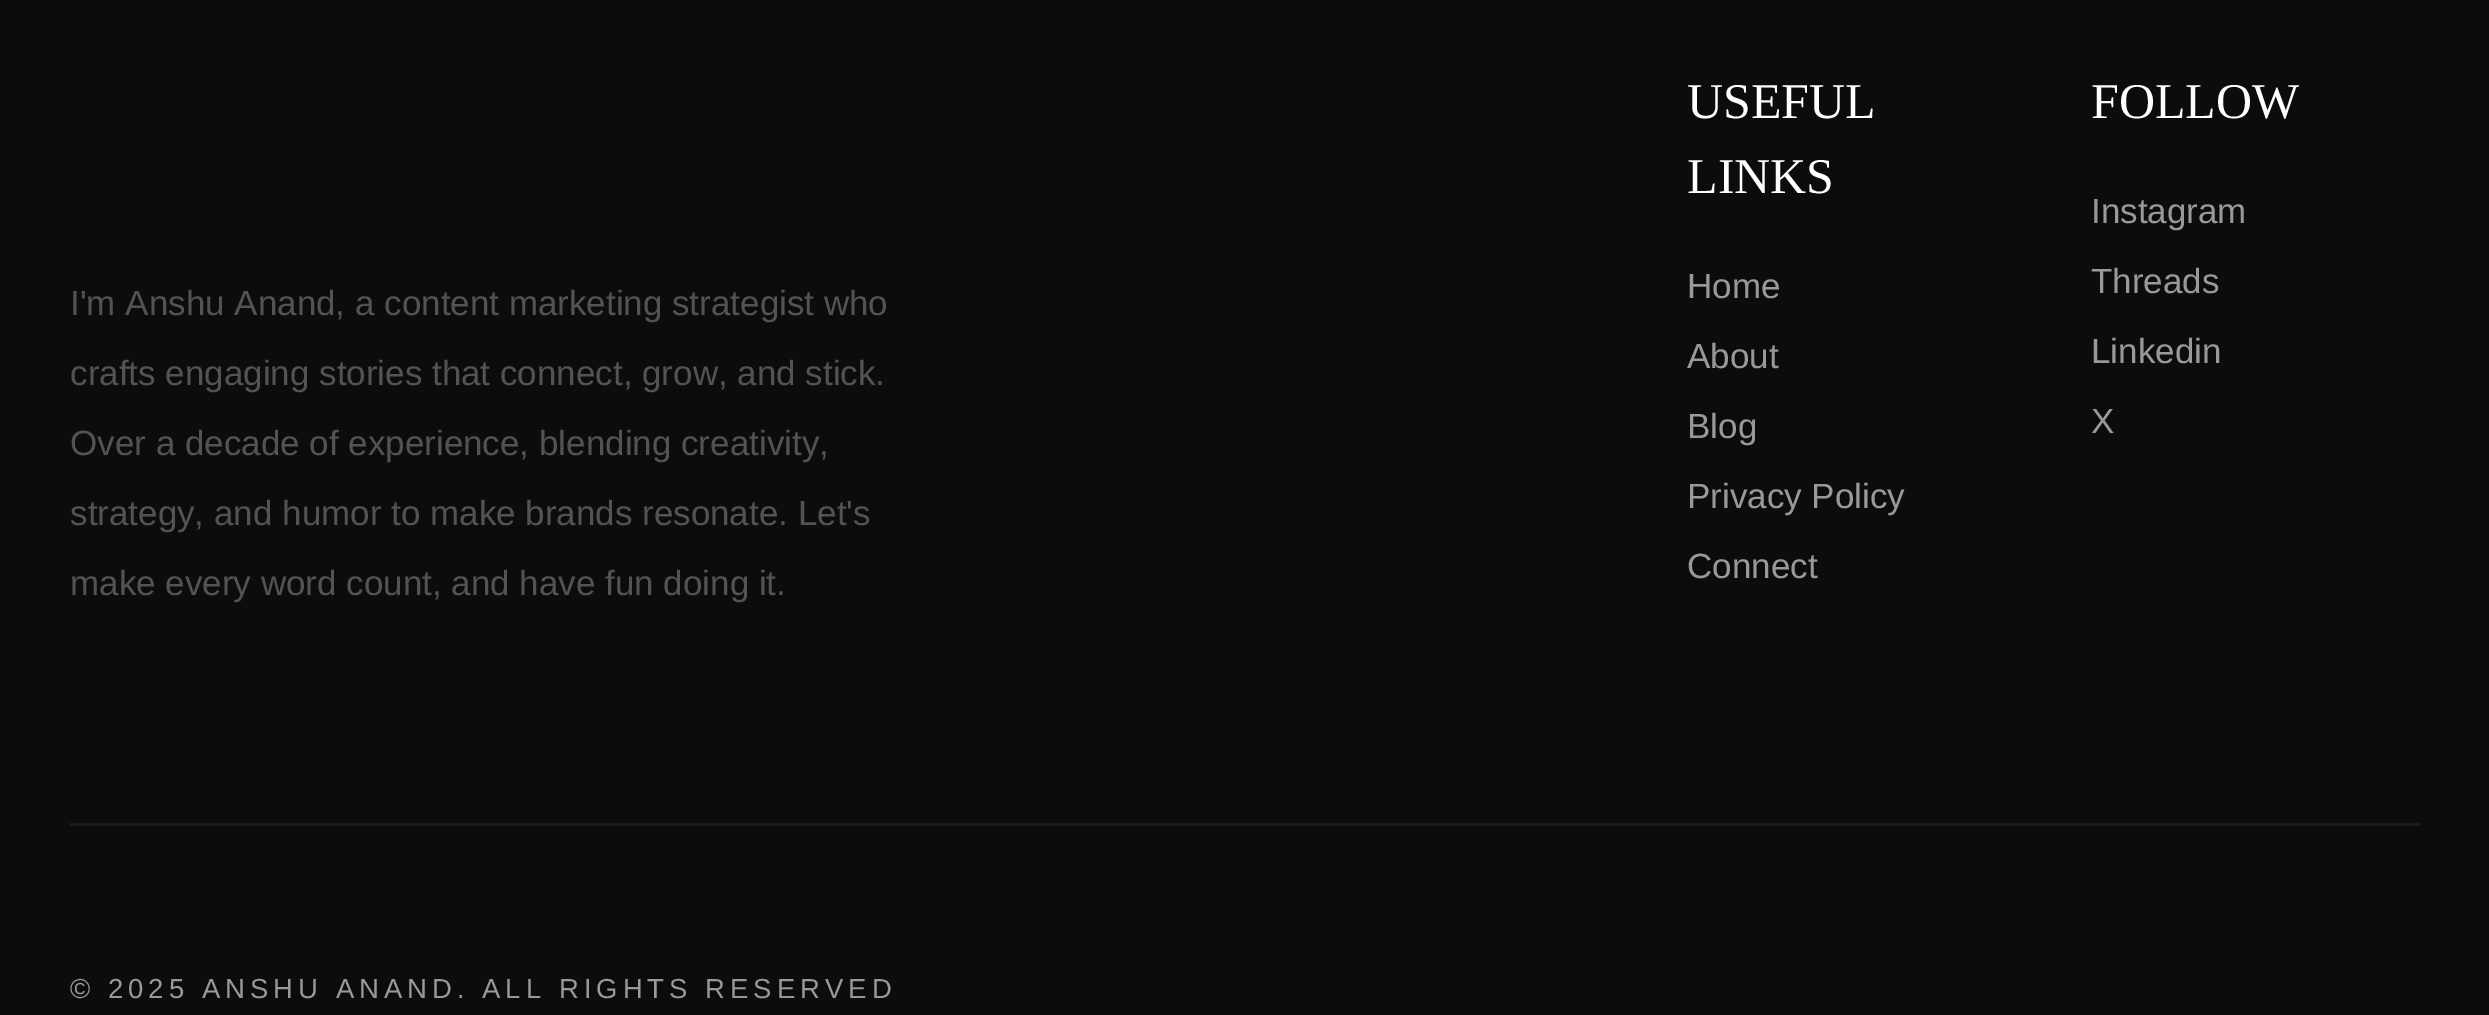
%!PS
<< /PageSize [2489 1015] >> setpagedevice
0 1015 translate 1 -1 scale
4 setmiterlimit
0.047 setgray
0 0 2489 1015 rectfill
/LiberationSans-Regular [35 0 0 -35 0 0] selectfont
0.325 setgray
70 315 moveto (I'm Anshu Anand, a content marketing strategist who) show
70 385 moveto (crafts engaging stories that connect, grow, and stick.) show
70 455 moveto (Over a decade of experience, blending creativity,) show
70 525 moveto (strategy, and humor to make brands resonate. Let's) show
70 595 moveto (make every word count, and have fun doing it.) show
/LiberationSerif-Regular [50 0 0 -50 0 0] selectfont
1 setgray
1687 118 moveto (USEFUL) show
1687 193 moveto (LINKS) show
/LiberationSans-Regular [35 0 0 -35 0 0] selectfont
0.6 setgray
1687 298 moveto (Home) show
1687 368 moveto (About) show
1687 438 moveto (Blog) show
1687 508 moveto (Privacy Policy) show
1687 578 moveto (Connect) show
/LiberationSerif-Regular [50 0 0 -50 0 0] selectfont
1 setgray
2091 118 moveto (FOLLOW) show
/LiberationSans-Regular [35 0 0 -35 0 0] selectfont
0.6 setgray
2091 223 moveto (Instagram) show
2091 293 moveto (Threads) show
2091 363 moveto (Linkedin) show
2091 433 moveto (X) show
0.11 setgray
70 823 2350 3 rectfill
/LiberationSans-Regular [27.5 0 0 -27.5 0 0] selectfont
0.6 setgray
70 998 moveto 5 0 (© 2025 ANSHU ANAND. ALL RIGHTS RESERVED) ashow
showpage
